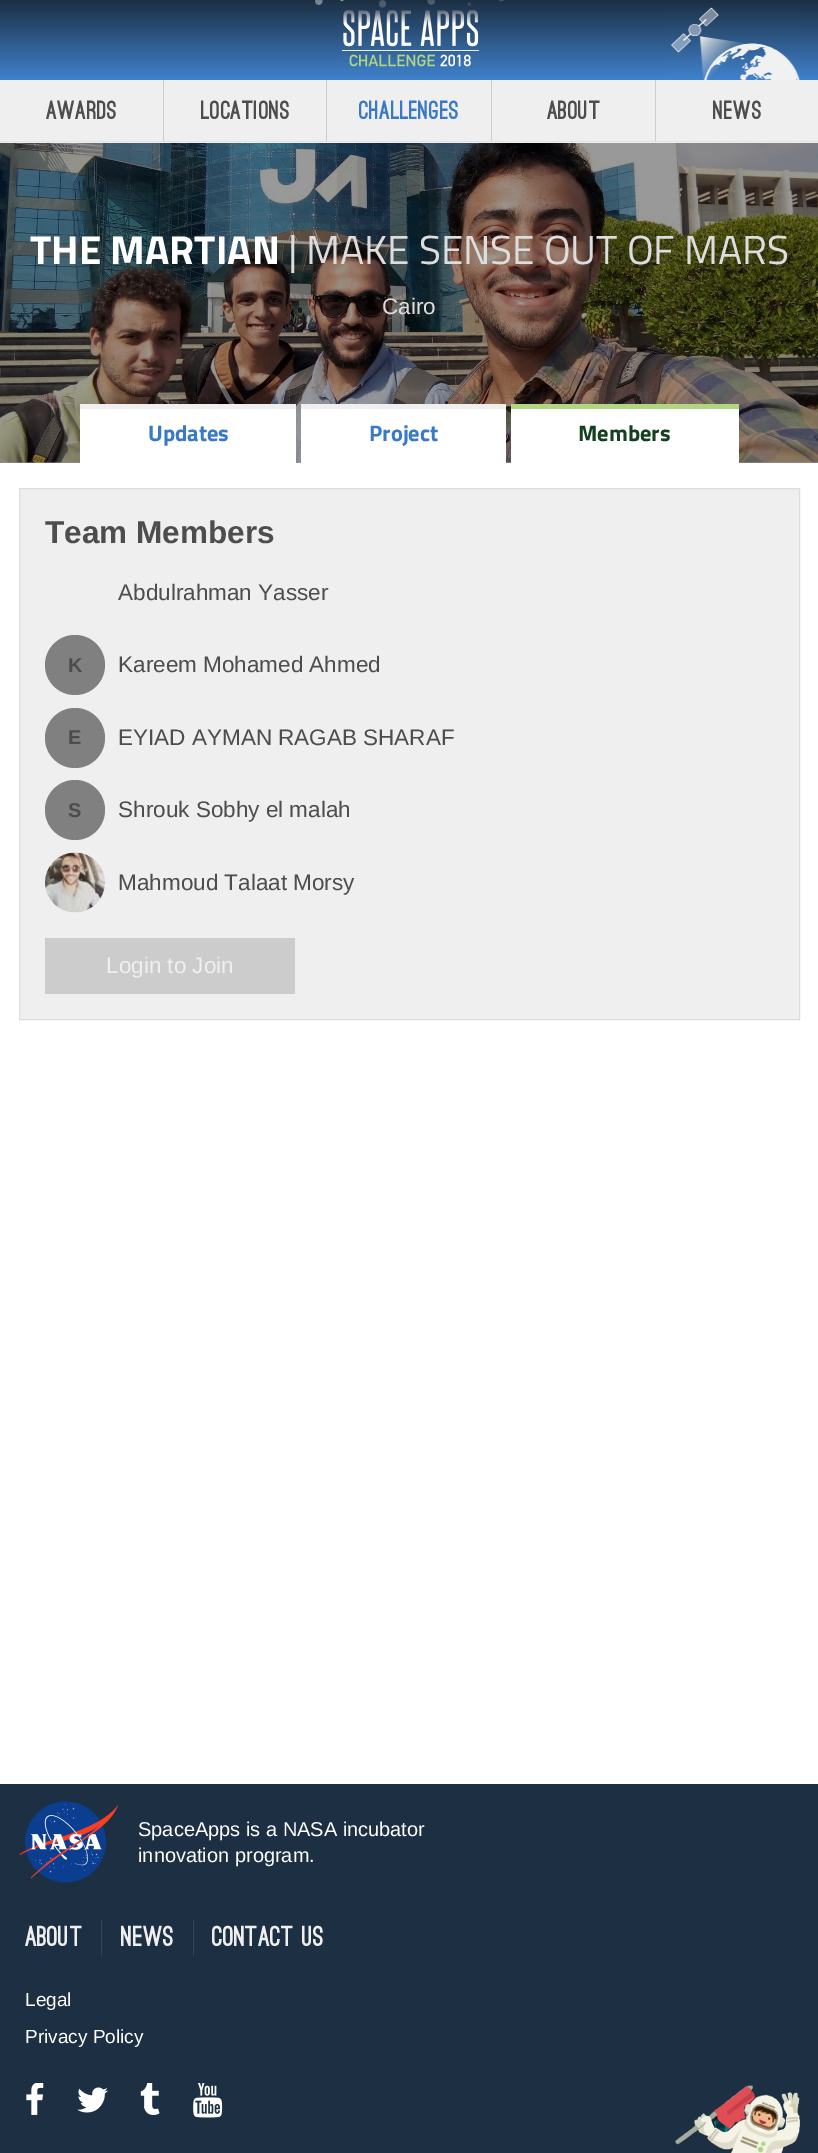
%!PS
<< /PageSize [818 2153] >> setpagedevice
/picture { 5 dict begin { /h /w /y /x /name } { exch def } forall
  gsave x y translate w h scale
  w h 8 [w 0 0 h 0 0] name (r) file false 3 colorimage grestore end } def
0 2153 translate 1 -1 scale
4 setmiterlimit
1 setgray
0 0 818 2153 rectfill
0.6 setgray
0 462 818 1 rectfill
0.937 setgray
0 80 818 63 rectfill
0.89 setgray
0 141 818 1 rectfill
gsave newpath 0 0 moveto 818 0 lineto 818 80 lineto 0 80 lineto closepath clip newpath
<< /ShadingType 2 /ColorSpace /DeviceRGB /Coords [409 80 409 0] /Extend [true true] /Function << /FunctionType 2 /Domain [0 1] /C0 [0.251 0.51 0.804] /C1 [0.11 0.184 0.263] /N 1 >> >> shfill grestore
(img1.rgb) 315 0 189 8 picture
(img2.rgb) 342 10 137 57 picture
(img3.rgb) 671 7 129 73 picture
/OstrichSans-Black [25 0 0 -25 0 0] selectfont
0.302 setgray
46 119 moveto 0.25 0 (Awards) ashow
0.8 setgray
163 80 1 61 rectfill
0.302 setgray
201 119 moveto 0.25 0 (Locations) ashow
0.8 setgray
326 80 1 61 rectfill
0.224 0.475 0.773 setrgbcolor
359 119 moveto 0.25 0 (Challenges) ashow
0.8 setgray
491 80 1 61 rectfill
0.302 setgray
547 119 moveto 0.25 0 (About) ashow
0.8 setgray
655 80 1 61 rectfill
0.302 setgray
713 119 moveto 0.25 0 (News) ashow
(img4.rgb) 0 143 818 320 picture
/TitilliumWeb-Bold [40.5 0 0 -40.5 0 0] selectfont
1 setgray
30 264 moveto (THE MARTIAN) show
/TitilliumWeb-Regular [40.5 0 0 -40.5 0 0] selectfont
0.867 setgray
288 264 moveto (| MAKE SENSE OUT OF MARS) show
/LiberationSans-Regular [22.5 0 0 -22.5 0 0] selectfont
382 314 moveto (Cairo) show
1 setgray
80 409 216 54 rectfill
0.937 setgray
80 404 216 5 rectfill
/TitilliumWeb-Bold [22.5 0 0 -22.5 0 0] selectfont
0.224 0.475 0.773 setrgbcolor
148 441 moveto (Updates) show
1 setgray
301 409 205 54 rectfill
0.937 setgray
301 404 205 5 rectfill
0.224 0.475 0.773 setrgbcolor
369 441 moveto (Project) show
1 setgray
511 409 228 54 rectfill
0.69 0.839 0.506 setrgbcolor
511 404 228 5 rectfill
0.075 0.251 0.125 setrgbcolor
578 441 moveto (Members) show
0.937 setgray
newpath 19.5 488.5 moveto 799.5 488.5 lineto 799.5 1019.5 lineto 19.5 1019.5 lineto closepath gsave fill grestore
0.867 setgray
stroke
/LiberationSans-Bold [31.5 0 0 -31.5 0 0] selectfont
0.302 setgray
45 543 moveto (Team Members) show
/LiberationSans-Regular [22.5 0 0 -22.5 0 0] selectfont
118 600 moveto (Abdulrahman Yasser) show
0.502 setgray
newpath 75 665 30 0 360 arc closepath fill
/LiberationSans-Bold [20 0 0 -20 0 0] selectfont
0.302 setgray
68 672 moveto (K) show
/LiberationSans-Regular [22.5 0 0 -22.5 0 0] selectfont
118 672 moveto (Kareem Mohamed Ahmed) show
0.502 setgray
newpath 75 738 30 0 360 arc closepath fill
/LiberationSans-Bold [20 0 0 -20 0 0] selectfont
0.302 setgray
68 744 moveto (E) show
/LiberationSans-Regular [22.5 0 0 -22.5 0 0] selectfont
118 745 moveto (EYIAD AYMAN RAGAB SHARAF) show
0.502 setgray
newpath 75 810 30 0 360 arc closepath fill
/LiberationSans-Bold [20 0 0 -20 0 0] selectfont
0.302 setgray
68 817 moveto (S) show
/LiberationSans-Regular [22.5 0 0 -22.5 0 0] selectfont
118 817 moveto (Shrouk Sobhy el malah) show
(img5.rgb) 45 852 60 61 picture
118 890 moveto (Mahmoud Talaat Morsy) show
0.8 setgray
45 938 250 56 rectfill
0.937 setgray
106 973 moveto (Login to Join) show
0.11 0.184 0.263 setrgbcolor
0 1784 818 369 rectfill
(img6.rgb) 19 1801 100 82 picture
/LiberationSans-Regular [20 0 0 -20 0 0] selectfont
1 setgray
138 1836 moveto (SpaceApps is a NASA incubator) show
138 1862 moveto (innovation program.) show
/OstrichSans-Black [27.5 0 0 -27.5 0 0] selectfont
0.937 setgray
25 1946 moveto (About) show
0.2 0.267 0.337 setrgbcolor
101 1920 1 36 rectfill
0.937 setgray
121 1946 moveto (News) show
0.2 0.267 0.337 setrgbcolor
193 1920 1 36 rectfill
0.937 setgray
212 1946 moveto (Contact Us) show
/LiberationSans-Regular [19 0 0 -19 0 0] selectfont
1 setgray
25 2006 moveto (Legal) show
25 2043 moveto (Privacy Policy) show
(img7.rgb) 26 2083 18 32 picture
(img8.rgb) 77 2087 31 26 picture
(img9.rgb) 140 2083 20 32 picture
(img10.rgb) 193 2083 30 35 picture
(img11.rgb) 675 2085 125 68 picture
showpage
